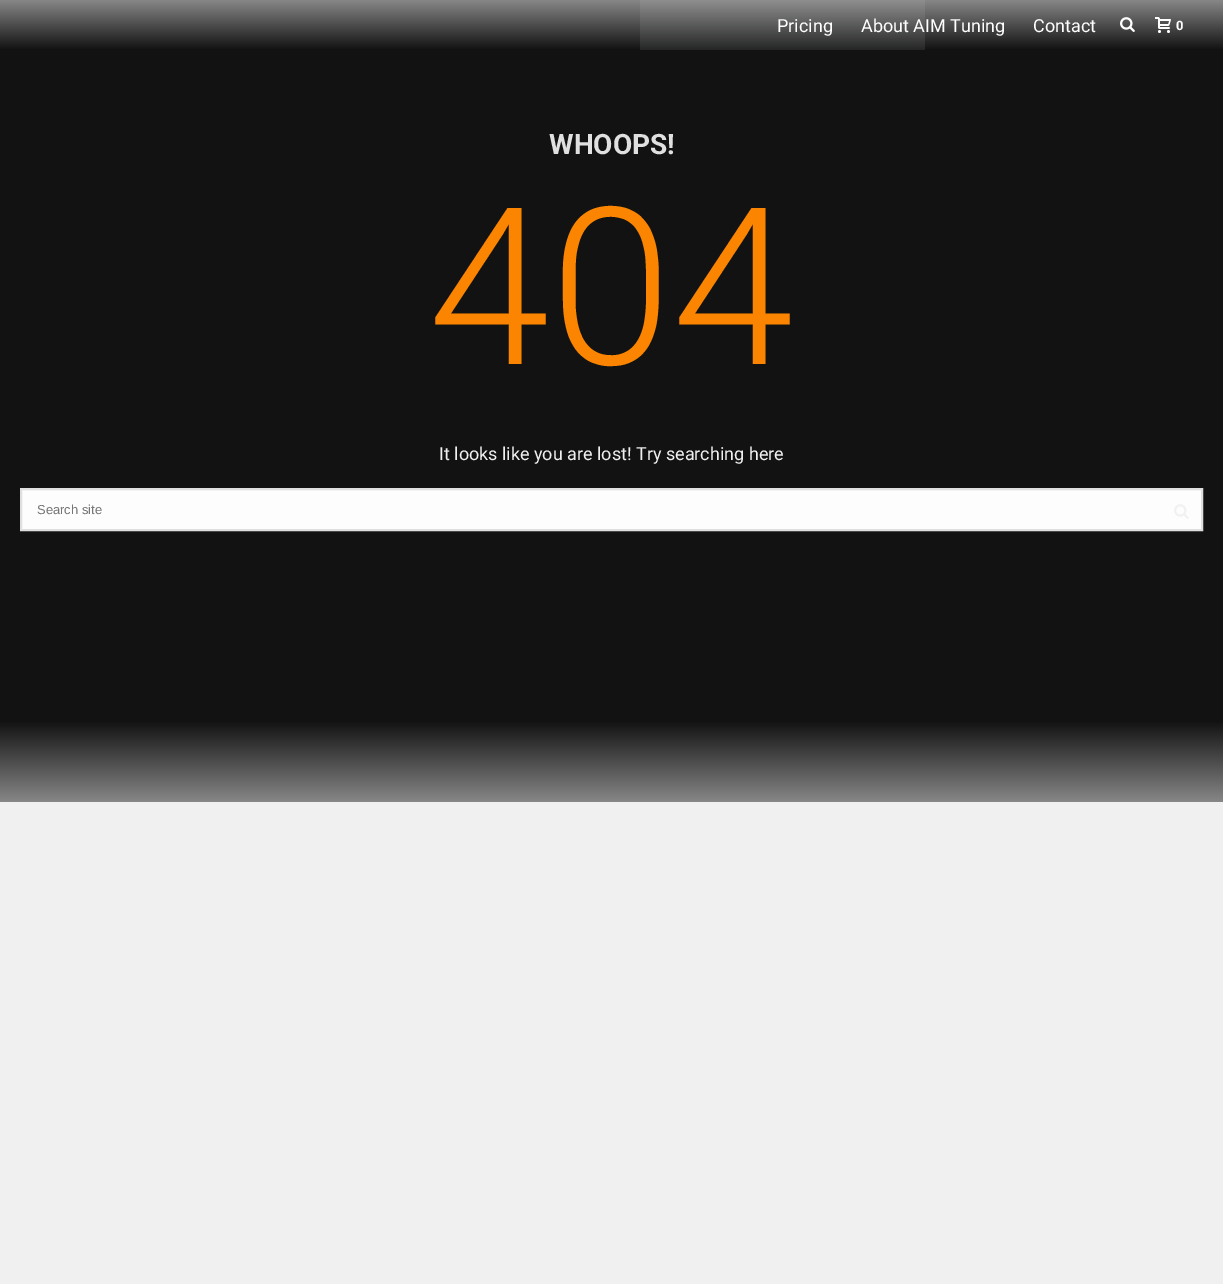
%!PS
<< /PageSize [1223 1284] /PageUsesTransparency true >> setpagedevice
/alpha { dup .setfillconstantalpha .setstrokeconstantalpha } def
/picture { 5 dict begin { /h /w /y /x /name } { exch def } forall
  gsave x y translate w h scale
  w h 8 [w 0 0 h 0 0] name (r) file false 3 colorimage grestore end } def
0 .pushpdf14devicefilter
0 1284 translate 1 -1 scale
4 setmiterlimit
0.941 setgray
0 0 1223 1284 rectfill
gsave newpath 0 0 moveto 1223 0 lineto 1223 50 lineto 0 50 lineto closepath clip newpath
<< /ShadingType 2 /ColorSpace /DeviceRGB /Coords [612 0 612 50] /Extend [true true] /Function << /FunctionType 2 /Domain [0 1] /C0 [0.529 0.529 0.529] /C1 [0.071 0.071 0.071] /N 1 >> >> shfill grestore
0.1 alpha
0.812 0.831 0.859 setrgbcolor
640 0 285 50 rectfill
/Roboto-Regular [18 0 0 -18 0 0] selectfont
1 alpha
1 setgray
777 32 moveto (Pricing) show
861 32 moveto (About AIM Tuning) show
1033 32 moveto (Contact) show
(img1.rgb) 1120 17 15 15 picture
(img2.rgb) 1155 17 16 16 picture
/Roboto-Bold [13 0 0 -13 0 0] selectfont
1176 30 moveto (0) show
0.071 setgray
0 50 1223 671 rectfill
/Roboto-Bold [28 0 0 -28 0 0] selectfont
0.878 setgray
549 154 moveto (WHOOPS!) show
/Roboto-Light [220 0 0 -220 0 0] selectfont
0.984 0.522 0 setrgbcolor
428 364 moveto (404) show
/Roboto-Regular [18 0 0 -18 0 0] selectfont
0.941 setgray
439 460 moveto (It looks like you are lost! Try searching here) show
0.992 setgray
newpath 21 489 moveto 1202 489 lineto 1202 530 lineto 21 530 lineto closepath gsave fill grestore
0.875 setgray
2 setlinewidth
stroke
/LiberationSans-Regular [13 0 0 -13 0 0] selectfont
0.459 setgray
37 514 moveto (Search site) show
(img3.rgb) 1174 504 15 15 picture
gsave newpath 0 721 moveto 1223 721 lineto 1223 802 lineto 0 802 lineto closepath clip newpath
<< /ShadingType 2 /ColorSpace /DeviceRGB /Coords [612 721 612 802] /Extend [true true] /Function << /FunctionType 2 /Domain [0 1] /C0 [0.071 0.071 0.071] /C1 [0.529 0.529 0.529] /N 1 >> >> shfill grestore
.poppdf14devicefilter showpage
